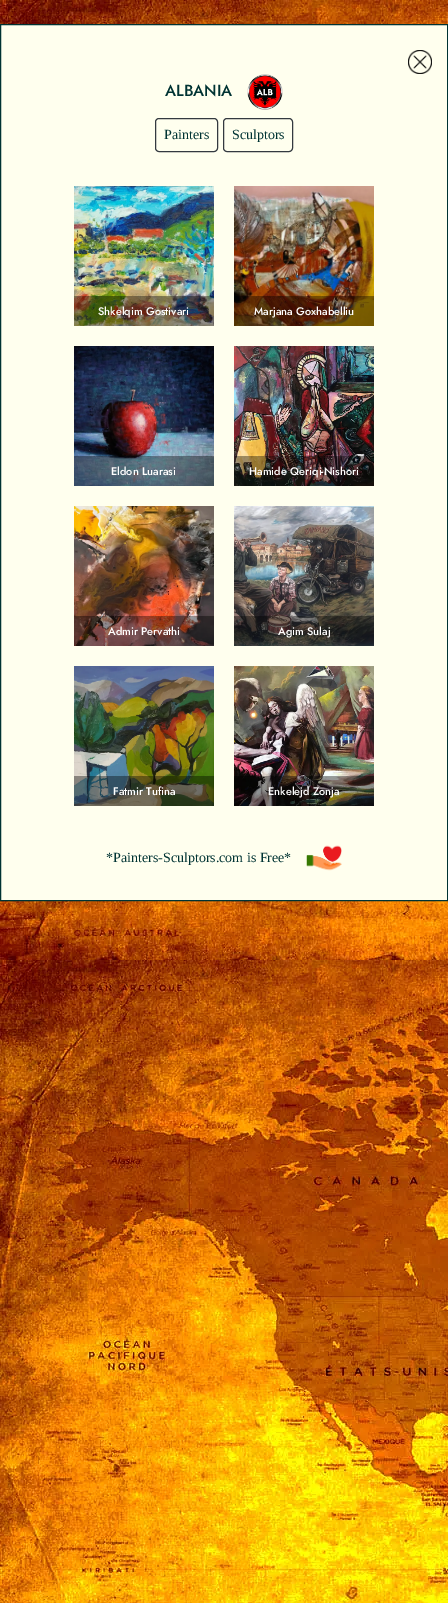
%!PS
<< /PageSize [448 1603] /PageUsesTransparency true >> setpagedevice
/alpha { dup .setfillconstantalpha .setstrokeconstantalpha } def
/roundrect { 5 dict begin { /r /h /w /y /x } { exch def } forall
  x r add y moveto x w add y 2 copy h add r arct x w add y h add x 1 index r arct
  x y h add x y r arct x y 2 copy exch w add exch r arct closepath end } def
/picture { 5 dict begin { /h /w /y /x /name } { exch def } forall
  gsave x y translate w h scale
  w h 8 [w 0 0 h 0 0] name (r) file false 3 colorimage grestore end } def
0 .pushpdf14devicefilter
0 1603 translate 1 -1 scale
4 setmiterlimit
1 setgray
0 0 448 1603 rectfill
(img1.rgb) 0 0 448 1603 picture
1 1 0.933 setrgbcolor
newpath 0.5 24.5 moveto 447.5 24.5 lineto 447.5 900.5 lineto 0.5 900.5 lineto closepath gsave fill grestore
0 0.2 0.2 setrgbcolor
stroke
(img2.rgb) 408 50 24 24 picture
/Jost-Medium [16 0 0 -16 0 0] selectfont
165 96 moveto (ALBANIA) show
(img3.rgb) 247 74 36 36 picture
0.204 0.227 0.251 setrgbcolor
155.5 118.5 62 33 3.5 roundrect stroke
/LiberationSerif-Regular [14 0 0 -14 0 0] selectfont
0 0.2 0.2 setrgbcolor
164 139 moveto (Painters) show
0.204 0.227 0.251 setrgbcolor
223.5 118.5 69 33 3.5 roundrect stroke
0 0.2 0.2 setrgbcolor
232 139 moveto (Sculptors) show
(img4.rgb) 74 186 140 140 picture
0.38 alpha
0 setgray
74 296 140 30 rectfill
/Jost-Medium [11 0 0 -11 0 0] selectfont
1 alpha
1 setgray
98 315 moveto (Shkelqim Gostivari) show
(img5.rgb) 234 186 140 140 picture
0.38 alpha
0 setgray
234 296 140 30 rectfill
1 alpha
1 setgray
254 315 moveto (Marjana Goxhabelliu) show
(img6.rgb) 74 346 140 140 picture
0.38 alpha
0 setgray
74 456 140 30 rectfill
1 alpha
1 setgray
111 475 moveto (Eldon Luarasi) show
(img7.rgb) 234 346 140 140 picture
0.38 alpha
0 setgray
234 456 140 30 rectfill
1 alpha
1 setgray
249 475 moveto (Hamide Qeriqi-Nishori) show
(img8.rgb) 74 506 140 140 picture
0.38 alpha
0 setgray
74 616 140 30 rectfill
1 alpha
1 setgray
108 635 moveto (Admir Pervathi) show
(img9.rgb) 234 506 140 140 picture
0.38 alpha
0 setgray
234 616 140 30 rectfill
1 alpha
1 setgray
278 635 moveto (Agim Sulaj) show
(img10.rgb) 74 666 140 140 picture
0.38 alpha
0 setgray
74 776 140 30 rectfill
1 alpha
1 setgray
113 795 moveto (Fatmir Tufina) show
(img11.rgb) 234 666 140 140 picture
0.38 alpha
0 setgray
234 776 140 30 rectfill
1 alpha
1 setgray
268 795 moveto (Enkelejd Zonja) show
/LiberationSerif-Regular [14 0 0 -14 0 0] selectfont
0 0.2 0.2 setrgbcolor
106 862 moveto (*Painters-Sculptors.com is Free*) show
(img12.rgb) 306 845 36 26 picture
.poppdf14devicefilter showpage
